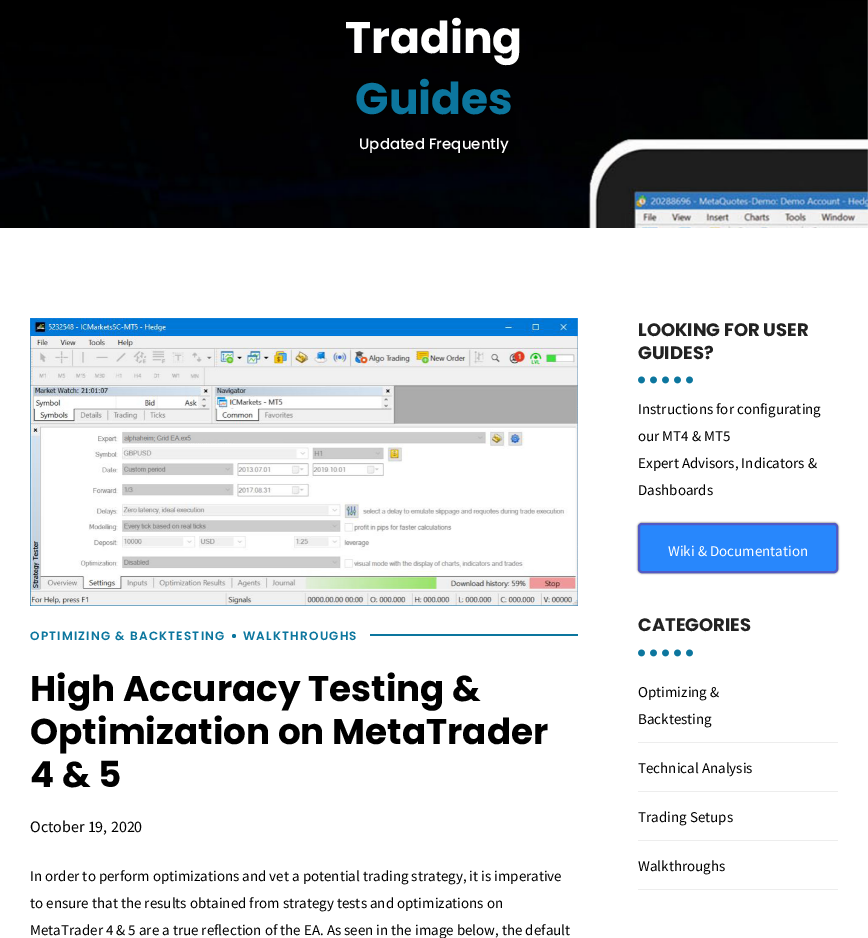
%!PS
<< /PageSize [868 938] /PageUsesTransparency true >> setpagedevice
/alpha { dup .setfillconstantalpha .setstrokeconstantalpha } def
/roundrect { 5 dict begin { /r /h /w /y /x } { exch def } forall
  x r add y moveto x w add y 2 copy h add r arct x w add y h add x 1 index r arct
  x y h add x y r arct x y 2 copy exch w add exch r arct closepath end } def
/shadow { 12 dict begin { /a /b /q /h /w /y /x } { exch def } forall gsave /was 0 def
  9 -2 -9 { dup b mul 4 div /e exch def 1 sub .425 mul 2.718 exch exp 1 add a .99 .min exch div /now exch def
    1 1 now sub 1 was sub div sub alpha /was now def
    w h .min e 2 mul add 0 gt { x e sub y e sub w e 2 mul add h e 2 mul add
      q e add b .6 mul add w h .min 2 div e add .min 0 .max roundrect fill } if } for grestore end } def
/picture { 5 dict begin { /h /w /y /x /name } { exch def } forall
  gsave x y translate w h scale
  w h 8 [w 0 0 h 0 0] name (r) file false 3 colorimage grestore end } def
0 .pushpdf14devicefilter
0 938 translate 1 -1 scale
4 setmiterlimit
1 setgray
0 0 868 938 rectfill
(img1.rgb) 0 0 868 228 picture
/Poppins-Bold [44 0 0 -44 0 0] selectfont
345 53 moveto (Trading) show
0.047 0.463 0.62 setrgbcolor
355 114 moveto (Guides) show
/Poppins-Medium [15 0 0 -15 0 0] selectfont
1 setgray
359 149 moveto (Updated Frequently) show
(img2.rgb) 30 318 548 288 picture
/Poppins-SemiBold [12 0 0 -12 0 0] selectfont
0.047 0.463 0.62 setrgbcolor
30 640 moveto 1.2 0 (OPTIMIZING & BACKTESTING) ashow
newpath 234 636 2 0 360 arc closepath fill
243 640 moveto 1.2 0 (WALKTHROUGHS) ashow
370 634 208 2 rectfill
/Poppins-Bold [35.8 0 0 -35.8 0 0] selectfont
0 setgray
30 701 moveto (High Accuracy Testing &) show
30 744 moveto (Optimization on MetaTrader) show
30 787 moveto (4 & 5) show
/SourceSansPro-Regular [16 0 0 -16 0 0] selectfont
30 832 moveto (October 19, 2020) show
/SourceSansPro-Regular [15 0 0 -15 0 0] selectfont
30 881 moveto (In order to perform optimizations and vet a potential trading strategy, it is imperative) show
30 908 moveto (to ensure that the results obtained from strategy tests and optimizations on) show
30 935 moveto (MetaTrader 4 & 5 are a true reflection of the EA. As seen in the image below, the default) show
/Poppins-Bold [18 0 0 -18 0 0] selectfont
0.133 setgray
638 336 moveto (LOOKING FOR USER) show
638 359 moveto (GUIDES?) show
(img3.rgb) 638 376 55 8 picture
/SourceSansPro-Regular [15 0 0 -15 0 0] selectfont
0 setgray
638 414 moveto (Instructions for configurating) show
638 441 moveto (our MT4 & MT5) show
638 468 moveto (Expert Advisors, Indicators &) show
638 495 moveto (Dashboards) show
0.2 setgray
638 523 200 50 4 1 1 shadow
0.157 0.529 0.988 setrgbcolor
639 524 198 48 3 roundrect gsave fill grestore
0.314 0.353 0.78 setrgbcolor
2 setlinewidth
stroke
1 setgray
668 556 moveto (Wiki & Documentation) show
/Poppins-Bold [18 0 0 -18 0 0] selectfont
0.133 setgray
638 631 moveto (CATEGORIES) show
(img3.rgb) 638 649 55 8 picture
0.929 setgray
638 742 200 1 rectfill
/SourceSansPro-Regular [15 0 0 -15 0 0] selectfont
0 setgray
638 697 moveto (Optimizing &) show
638 724 moveto (Backtesting) show
0.929 setgray
638 791 200 1 rectfill
0 setgray
638 773 moveto (Technical Analysis) show
0.929 setgray
638 840 200 1 rectfill
0 setgray
638 822 moveto (Trading Setups) show
0.929 setgray
638 889 200 1 rectfill
0 setgray
638 871 moveto (Walkthroughs) show
.poppdf14devicefilter showpage
